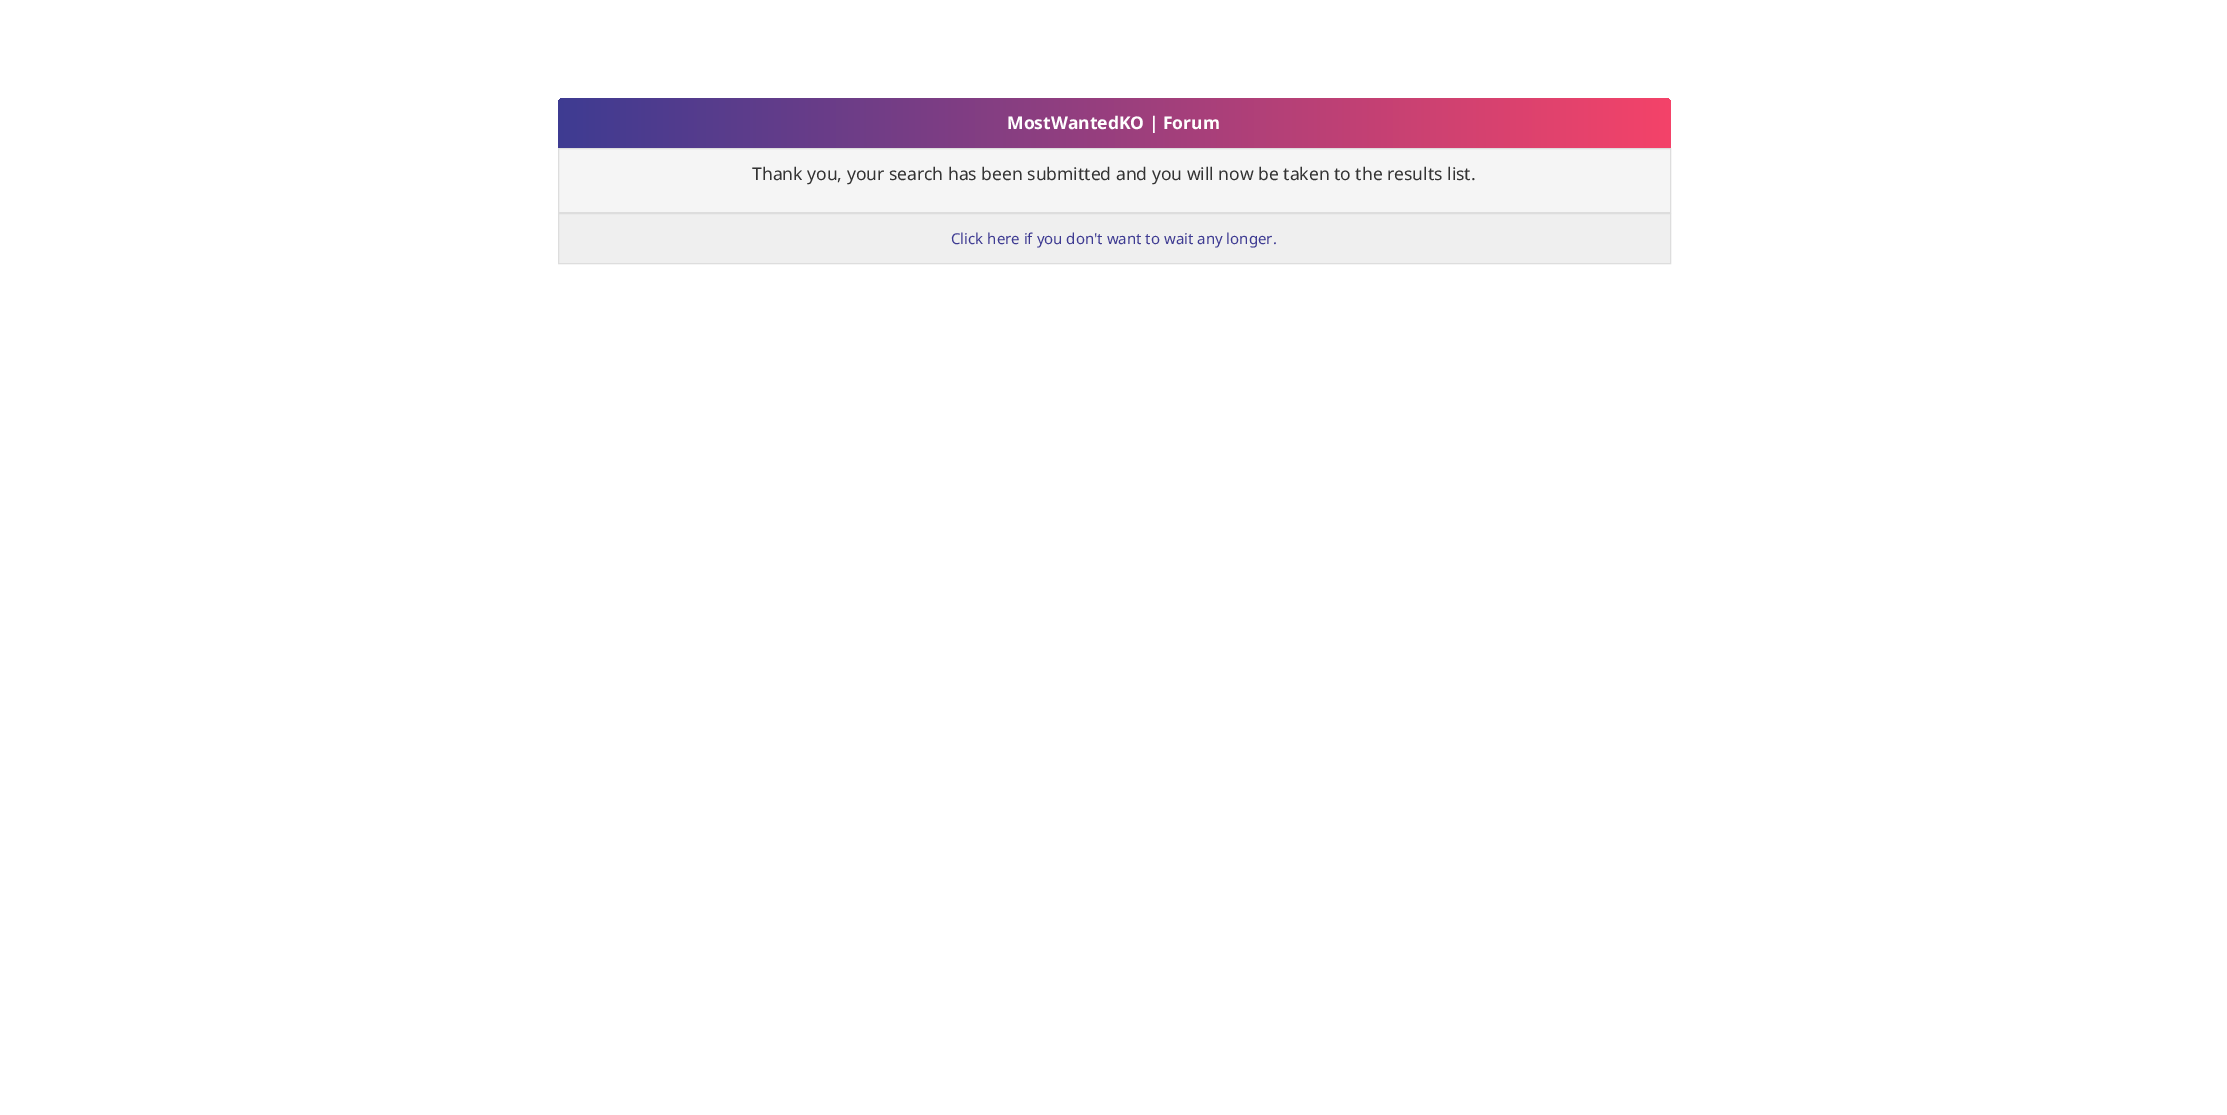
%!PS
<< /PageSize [2227 1115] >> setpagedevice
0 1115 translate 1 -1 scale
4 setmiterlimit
1 setgray
0 0 2227 1115 rectfill
gsave newpath 564 98 moveto 1665 98 lineto 1668.5 98 1671 100.5 1671 104 curveto 1671 148 lineto 558 148 lineto 558 104 lineto 558 100.5 560.5 98 564 98 curveto closepath clip newpath
<< /ShadingType 2 /ColorSpace /DeviceRGB /Coords [558 123 1671 122] /Extend [true true] /Function << /FunctionType 2 /Domain [0 1] /C0 [0.243 0.231 0.573] /C1 [0.957 0.263 0.412] /N 1 >> >> shfill grestore
/NotoSans-Bold [17.5 0 0 -17.5 0 0] selectfont
1007 129 moveto (MostWantedKO | Forum) show
0.961 setgray
newpath 558.5 148.5 moveto 1670.5 148.5 lineto 1670.5 212.5 lineto 558.5 212.5 lineto closepath gsave fill grestore
0.867 setgray
stroke
/NotoSans-Regular [17.5 0 0 -17.5 0 0] selectfont
0.2 setgray
752 180 moveto (Thank you, your search has been submitted and you will now be taken to the results list.) show
0.937 setgray
newpath 558.5 213.5 moveto 1670.5 213.5 lineto 1670.5 263.5 lineto 558.5 263.5 lineto closepath gsave fill grestore
0.867 setgray
stroke
/NotoSans-Regular [15 0 0 -15 0 0] selectfont
0.243 0.231 0.573 setrgbcolor
951 244 moveto (Click here if you don't want to wait any longer.) show
showpage
